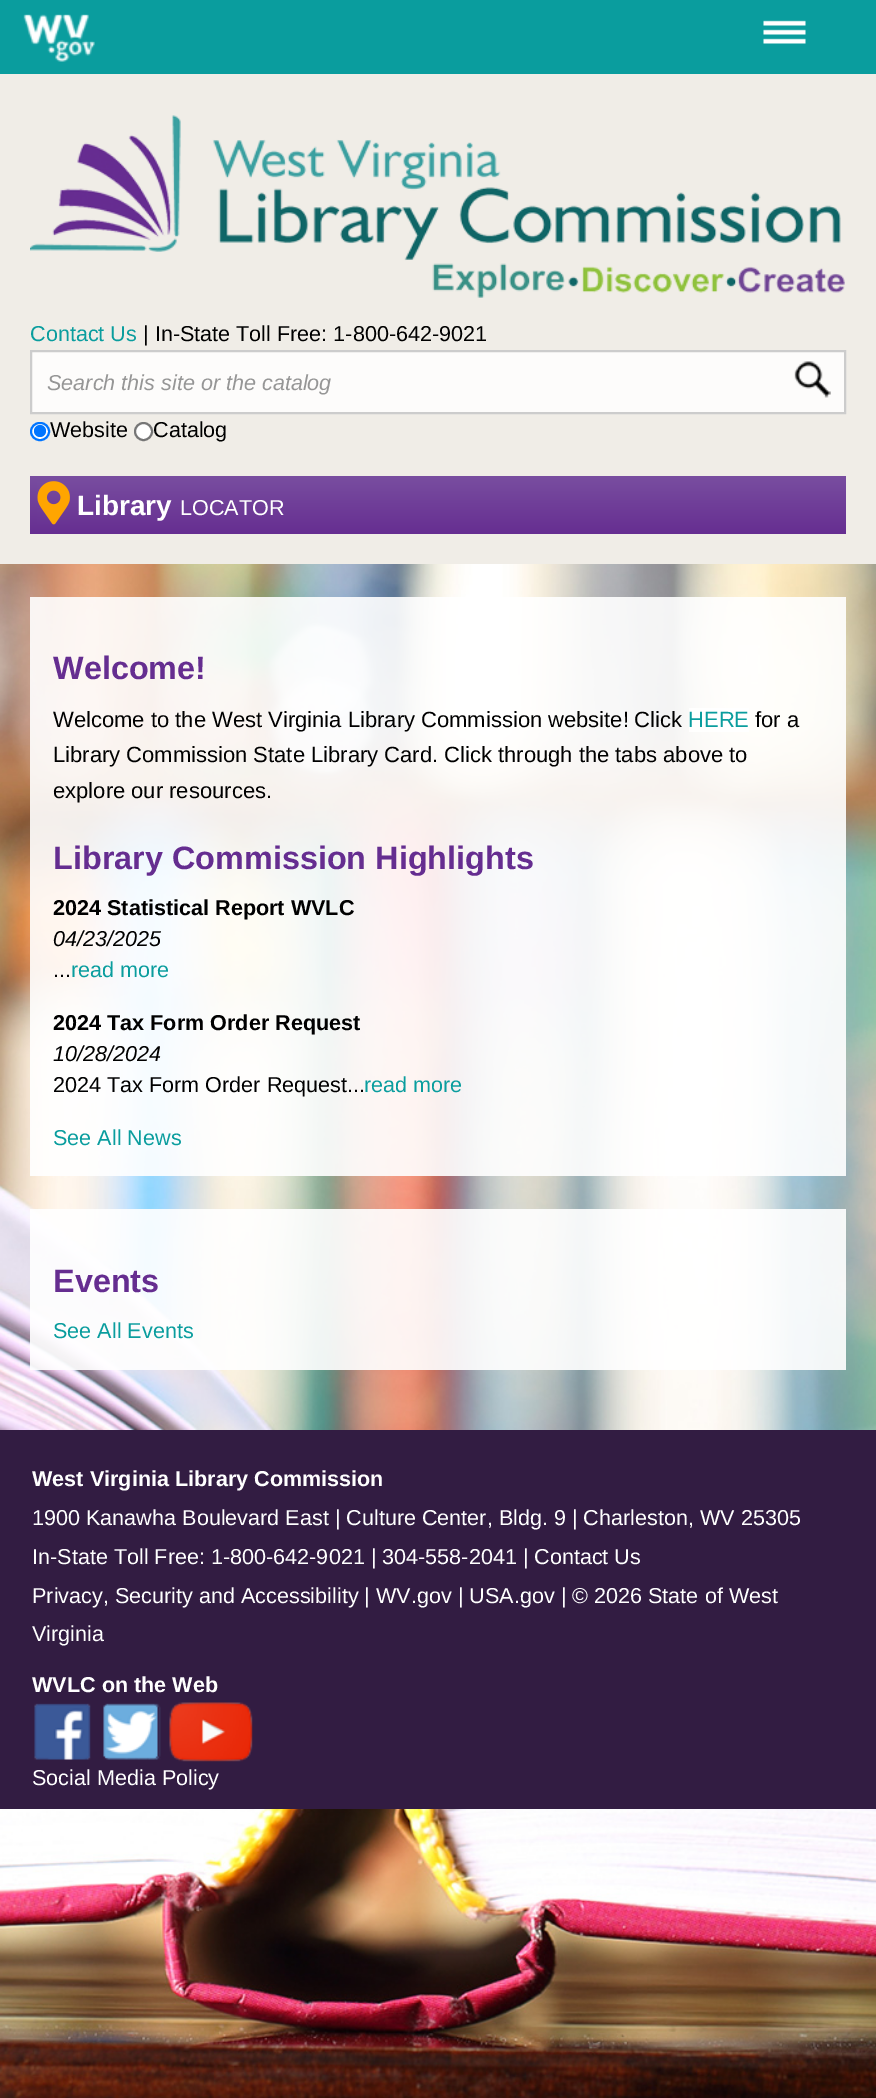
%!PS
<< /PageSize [876 2098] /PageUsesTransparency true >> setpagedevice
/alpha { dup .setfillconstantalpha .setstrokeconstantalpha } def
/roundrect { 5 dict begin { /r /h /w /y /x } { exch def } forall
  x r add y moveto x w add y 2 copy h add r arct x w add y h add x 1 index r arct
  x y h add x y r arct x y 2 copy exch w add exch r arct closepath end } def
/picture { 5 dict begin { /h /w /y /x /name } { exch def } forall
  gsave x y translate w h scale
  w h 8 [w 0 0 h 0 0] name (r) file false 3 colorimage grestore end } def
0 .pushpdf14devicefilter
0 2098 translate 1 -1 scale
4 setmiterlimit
1 setgray
0 0 876 2098 rectfill
(img1.rgb) 0 564 876 1534 picture
0.941 0.929 0.906 setrgbcolor
0 74 876 490 rectfill
(img2.rgb) 30 115 815 183 picture
/LiberationSans-Regular [21.6 0 0 -21.6 0 0] selectfont
0.039 0.616 0.62 setrgbcolor
30 341 moveto (Contact Us) show
0 setgray
143 341 moveto (| In-State Toll Free: 1-800-642-9021) show
0.992 0.988 0.984 setrgbcolor
newpath 31 351 moveto 845 351 lineto 845 413 lineto 31 413 lineto closepath gsave fill grestore
0.8 setgray
2 setlinewidth
stroke
/LiberationSans-Italic [21.6 0 0 -21.6 0 0] selectfont
0.588 setgray
47 390 moveto (Search this site or the catalog) show
(img3.rgb) 794 361 37 37 picture
1 setgray
31 423 18 17 8.5 roundrect gsave fill grestore
0 0.459 1 setrgbcolor
stroke
newpath 40 431 6 0 360 arc closepath fill
/LiberationSans-Regular [21.6 0 0 -21.6 0 0] selectfont
0 setgray
50 437 moveto (Website) show
1 setgray
newpath 143.5 431.5 8.5 0 360 arc closepath gsave fill grestore
0.463 setgray
stroke
0 setgray
153 437 moveto (Catalog) show
gsave newpath 30 476 moveto 846 476 lineto 846 534 lineto 30 534 lineto closepath clip newpath
<< /ShadingType 2 /ColorSpace /DeviceRGB /Coords [438 475 438 534] /Extend [true true] /Function << /FunctionType 2 /Domain [0 1] /C0 [0.475 0.31 0.627] /C1 [0.4 0.18 0.569] /N 1 >> >> shfill grestore
(img4.rgb) 37 481 33 44 picture
/LiberationSans-Bold [28 0 0 -28 0 0] selectfont
1 setgray
77 515 moveto (Library) show
/LiberationSans-Regular [21.6 0 0 -21.6 0 0] selectfont
180 515 moveto (LOCATOR) show
0.039 0.616 0.62 setrgbcolor
0 0 876 74 rectfill
(img5.rgb) 23 14 72 48 picture
(img6.rgb) 763 20 43 24 picture
0.9 alpha
1 setgray
30 597 816 579 rectfill
/LiberationSans-Bold [32.4 0 0 -32.4 0 0] selectfont
1 alpha
0.396 0.176 0.565 setrgbcolor
53 679 moveto (Welcome!) show
/LiberationSans-Regular [22 0 0 -22 0 0] selectfont
0 setgray
53 727 moveto (Welcome to the West Virginia Library Commission website!) show
634 727 moveto (Click) show
0.9 alpha
1 setgray
689 708 60 24 rectfill
1 alpha
0.039 0.616 0.62 setrgbcolor
688 727 moveto (HERE) show
0 setgray
755 727 moveto (for a) show
53 762 moveto (Library Commission State Library Card. Click through the tabs above to) show
53 798 moveto (explore our resources.) show
/LiberationSans-Bold [32.4 0 0 -32.4 0 0] selectfont
0.396 0.176 0.565 setrgbcolor
53 869 moveto (Library Commission Highlights) show
/LiberationSans-Bold [21.6 0 0 -21.6 0 0] selectfont
0 setgray
53 915 moveto (2024 Statistical Report WVLC) show
/LiberationSans-Italic [21.6 0 0 -21.6 0 0] selectfont
53 946 moveto (04/23/2025) show
/LiberationSans-Regular [21.6 0 0 -21.6 0 0] selectfont
53 977 moveto (...) show
0.039 0.616 0.62 setrgbcolor
71 977 moveto (read more) show
/LiberationSans-Bold [21.6 0 0 -21.6 0 0] selectfont
0 setgray
53 1030 moveto (2024 Tax Form Order Request) show
/LiberationSans-Italic [21.6 0 0 -21.6 0 0] selectfont
53 1061 moveto (10/28/2024) show
/LiberationSans-Regular [21.6 0 0 -21.6 0 0] selectfont
53 1092 moveto (2024 Tax Form Order Request...) show
0.039 0.616 0.62 setrgbcolor
364 1092 moveto (read more) show
53 1145 moveto (See All News) show
0.9 alpha
1 setgray
30 1209 816 161 rectfill
/LiberationSans-Bold [32.4 0 0 -32.4 0 0] selectfont
1 alpha
0.396 0.176 0.565 setrgbcolor
53 1292 moveto (Events) show
/LiberationSans-Regular [21.6 0 0 -21.6 0 0] selectfont
0.039 0.616 0.62 setrgbcolor
53 1338 moveto (See All Events) show
0.196 0.11 0.259 setrgbcolor
0 1430 876 379 rectfill
/LiberationSans-Bold [21.6 0 0 -21.6 0 0] selectfont
1 setgray
32 1486 moveto (West Virginia Library Commission) show
/LiberationSans-Regular [21.6 0 0 -21.6 0 0] selectfont
32 1525 moveto (1900 Kanawha Boulevard East | Culture Center, Bldg. 9 | Charleston, WV 25305) show
32 1564 moveto (In-State Toll Free: 1-800-642-9021 | 304-558-2041 |) show
534 1564 moveto (Contact Us) show
32 1603 moveto (Privacy, Security and Accessibility | WV.gov | USA.gov | © 2026 State of West) show
32 1641 moveto (Virginia) show
/LiberationSans-Bold [21.6 0 0 -21.6 0 0] selectfont
32 1692 moveto (WVLC on the Web) show
(img7.rgb) 34 1703 57 57 picture
(img8.rgb) 103 1703 58 57 picture
(img9.rgb) 169 1702 84 60 picture
/LiberationSans-Regular [21.6 0 0 -21.6 0 0] selectfont
32 1785 moveto (Social Media Policy) show
.poppdf14devicefilter showpage
